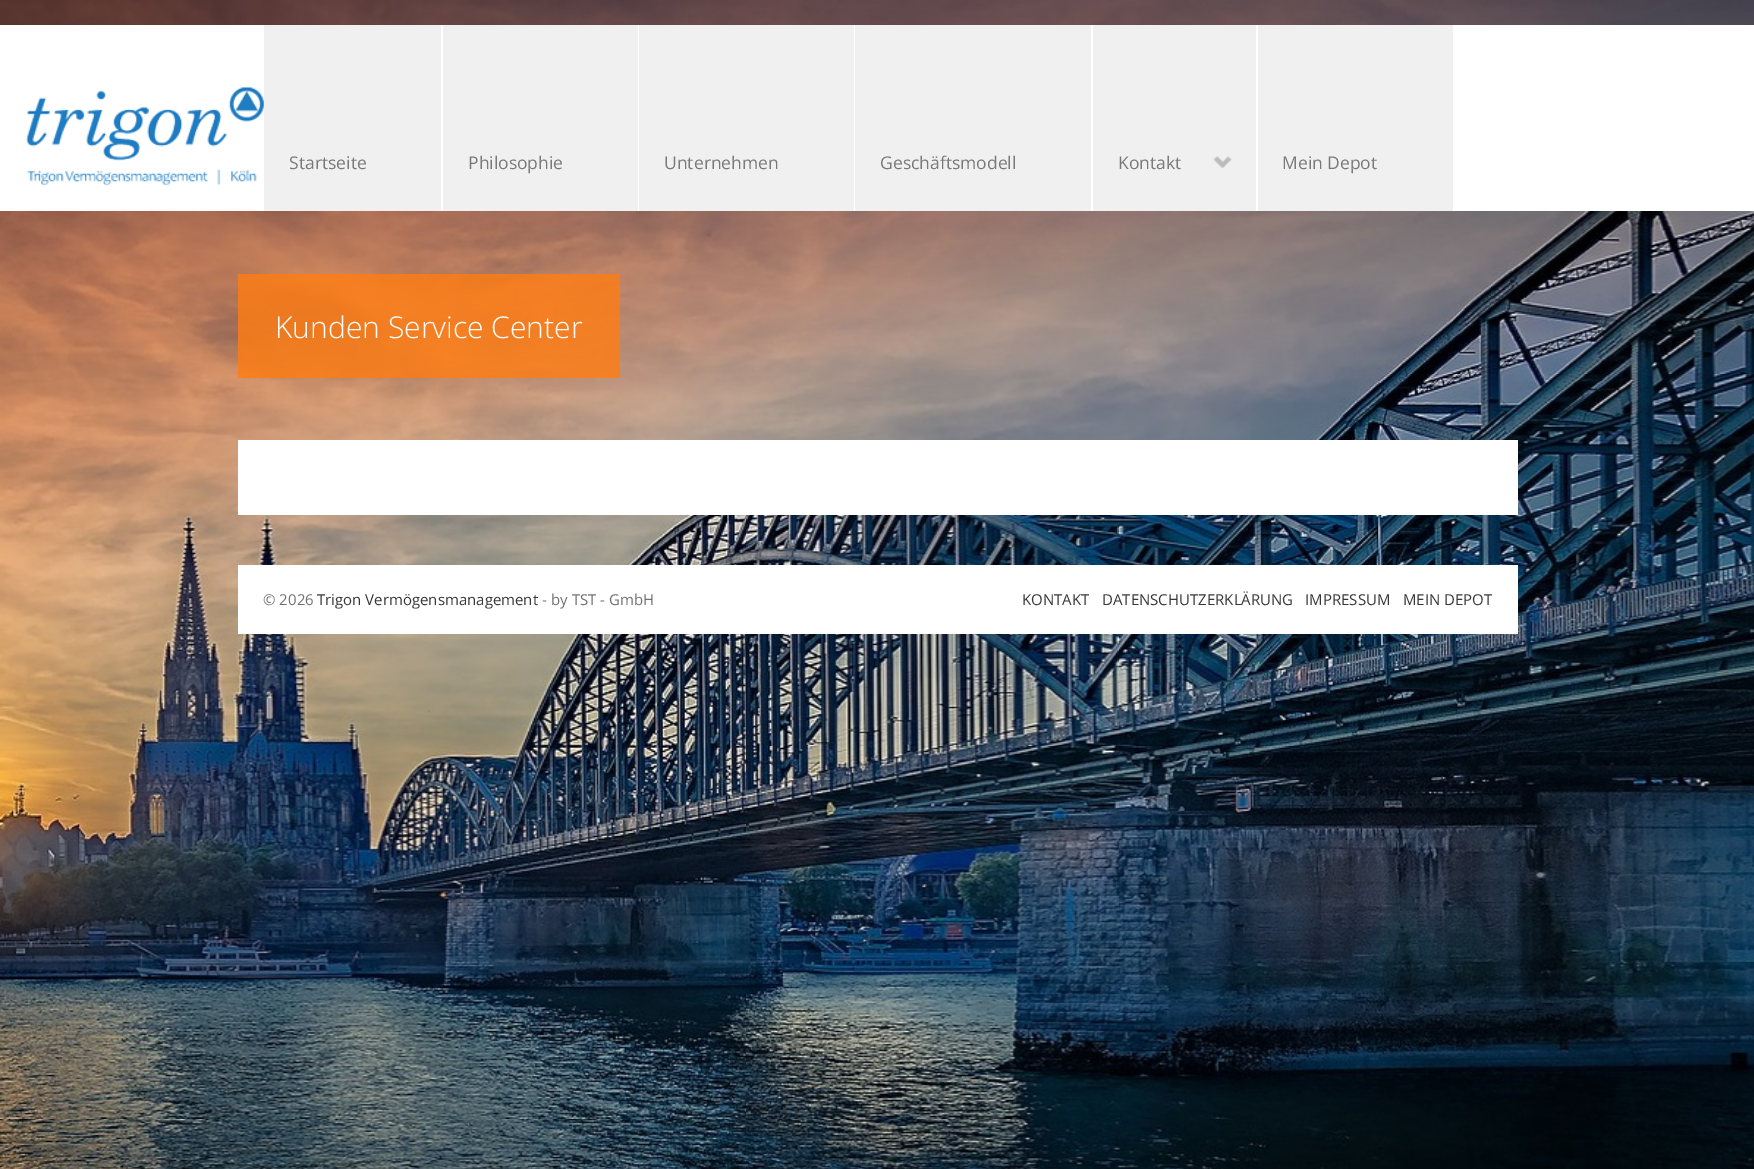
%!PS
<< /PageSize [1754 1169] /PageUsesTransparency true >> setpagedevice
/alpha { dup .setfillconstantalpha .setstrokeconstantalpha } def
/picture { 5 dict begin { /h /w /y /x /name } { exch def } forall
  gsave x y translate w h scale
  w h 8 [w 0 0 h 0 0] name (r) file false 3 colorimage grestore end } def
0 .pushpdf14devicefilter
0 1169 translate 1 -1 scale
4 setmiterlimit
1 setgray
0 0 1754 1169 rectfill
(img1.rgb) 0 0 1754 1169 picture
0 25 1754 186 rectfill
(img2.rgb) 26 87 238 99 picture
0.941 setgray
264 25 177 186 rectfill
/OpenSans-Regular [17.5 0 0 -17.5 0 0] selectfont
0.475 setgray
289 169 moveto (Startseite) show
0.941 setgray
443 25 195 186 rectfill
0.475 setgray
468 169 moveto (Philosophie) show
0.941 setgray
639 25 215 186 rectfill
0.475 setgray
664 169 moveto (Unternehmen) show
0.941 setgray
855 25 236 186 rectfill
0.475 setgray
880 169 moveto (Geschäftsmodell) show
0.941 setgray
1093 25 163 186 rectfill
0.475 setgray
1118 169 moveto (Kontakt) show
(img3.rgb) 1213 156 19 12 picture
0.941 setgray
1258 25 195 186 rectfill
0.475 setgray
1282 169 moveto (Mein Depot) show
0.8 alpha
1 0.486 0.071 setrgbcolor
238 274 382 104 rectfill
/OpenSans-Light [30 0 0 -30 0 0] selectfont
1 alpha
1 setgray
275 338 moveto (Kunden Service Center) show
238 440 1280 75 rectfill
238 565 1280 69 rectfill
/OpenSans-Regular [15 0 0 -15 0 0] selectfont
0.439 setgray
263 605 moveto (© 2026) show
0.216 setgray
317 605 moveto (Trigon Vermögensmanagement) show
/LiberationSans-Regular [15 0 0 -15 0 0] selectfont
0.439 setgray
542 605 moveto (‐) show
/OpenSans-Regular [15 0 0 -15 0 0] selectfont
551 605 moveto (by TST - GmbH) show
0.216 setgray
1022 605 moveto (KONTAKT) show
1102 605 moveto (DATENSCHUTZERKLÄRUNG) show
1305 605 moveto (IMPRESSUM) show
1403 605 moveto (MEIN DEPOT) show
.poppdf14devicefilter showpage
